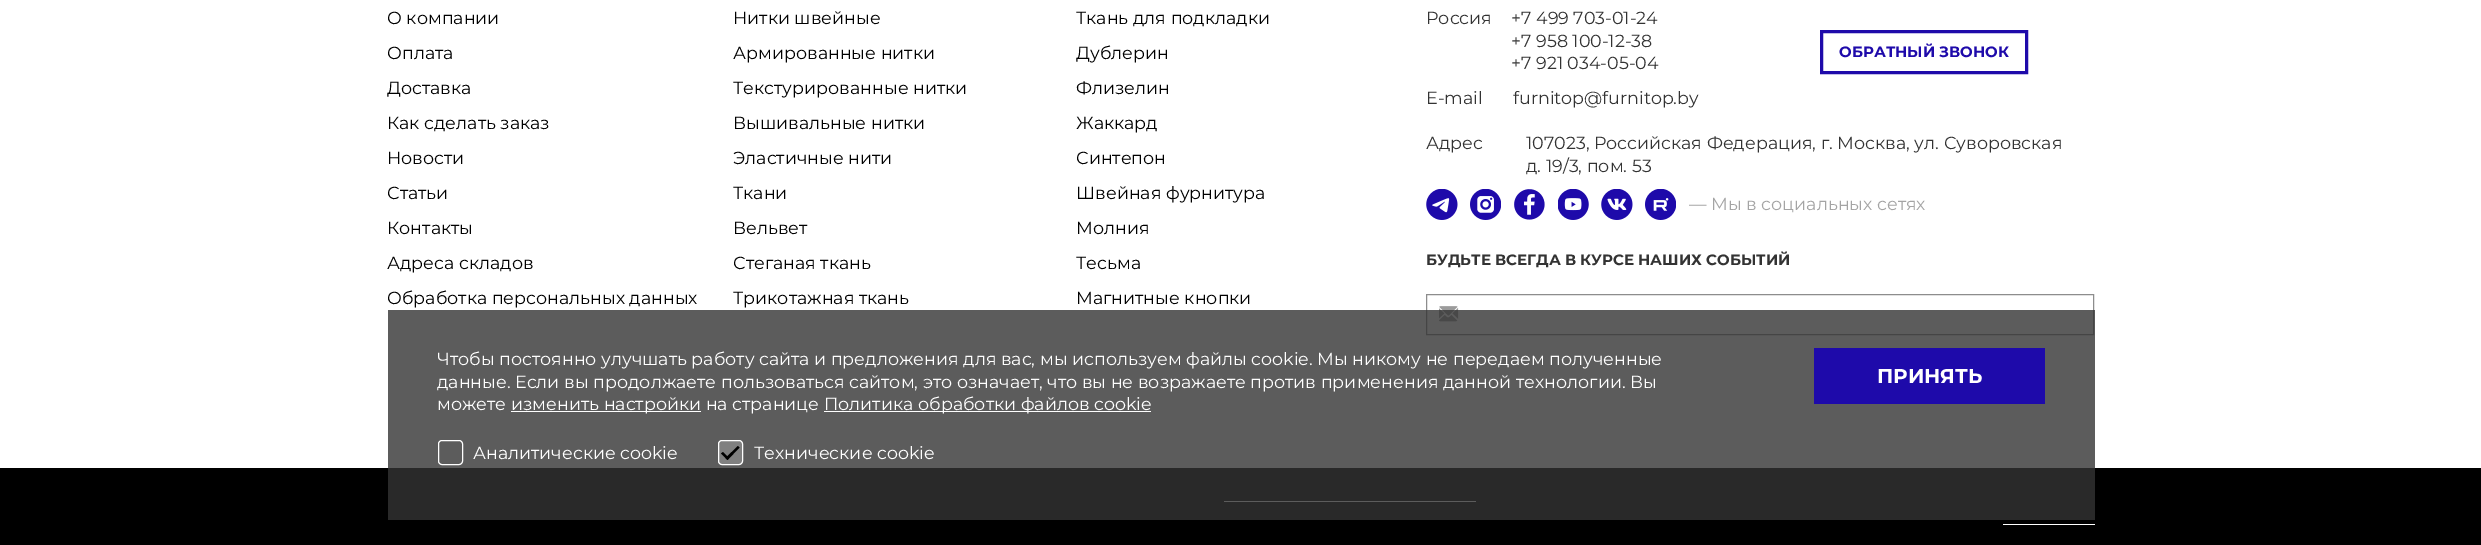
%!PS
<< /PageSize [2481 545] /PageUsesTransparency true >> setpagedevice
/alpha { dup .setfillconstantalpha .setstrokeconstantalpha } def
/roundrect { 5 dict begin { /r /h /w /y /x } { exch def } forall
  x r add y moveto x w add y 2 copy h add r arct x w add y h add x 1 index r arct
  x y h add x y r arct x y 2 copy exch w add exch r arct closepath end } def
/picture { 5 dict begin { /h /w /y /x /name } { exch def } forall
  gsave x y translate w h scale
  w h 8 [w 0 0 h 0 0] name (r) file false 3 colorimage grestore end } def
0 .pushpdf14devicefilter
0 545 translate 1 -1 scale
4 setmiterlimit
1 setgray
0 0 2481 545 rectfill
/Montserrat-Regular [17.5 0 0 -17.5 0 0] selectfont
0 setgray
387 24 moveto (О компании) show
387 59 moveto (Оплата) show
387 94 moveto (Доставка) show
387 129 moveto (Как сделать заказ) show
387 164 moveto (Новости) show
387 199 moveto (Статьи) show
387 234 moveto (Контакты) show
387 269 moveto (Адреса складов) show
387 304 moveto (Обработка персональных данных) show
733 24 moveto (Нитки швейные) show
1076 24 moveto (Ткань для подкладки) show
733 59 moveto (Армированные нитки) show
1076 59 moveto (Дублерин) show
733 94 moveto (Текстурированные нитки) show
1076 94 moveto (Флизелин) show
733 129 moveto (Вышивальные нитки) show
1076 129 moveto (Жаккард) show
733 164 moveto (Эластичные нити) show
1076 164 moveto (Синтепон) show
733 199 moveto (Ткани) show
1076 199 moveto (Швейная фурнитура) show
733 234 moveto (Вельвет) show
1076 234 moveto (Молния) show
733 269 moveto (Стеганая ткань) show
1076 269 moveto (Тесьма) show
733 304 moveto (Трикотажная ткань) show
1076 304 moveto (Магнитные кнопки) show
0.2 setgray
1426 24 moveto (Россия) show
1511 24 moveto (+7 499 703-01-24) show
1511 47 moveto (+7 958 100-12-38) show
1511 69 moveto (+7 921 034-05-04) show
1426 104 moveto (E-mail) show
1513 104 moveto (furnitop@furnitop.by) show
0.118 0.039 0.667 setrgbcolor
3 setlinewidth
1821.5 31.5 205 41 rectstroke
/Montserrat-Bold [15 0 0 -15 0 0] selectfont
1839 57 moveto (ОБРАТНЫЙ ЗВОНОК) show
/Montserrat-Regular [17.5 0 0 -17.5 0 0] selectfont
0.2 setgray
1426 149 moveto (Адрес) show
1526 149 moveto (107023, Российская Федерация, г. Москва, ул. Суворовская) show
1526 172 moveto (д. 19/3, пом. 53) show
(img1.rgb) 1426 189 32 31 picture
(img2.rgb) 1470 189 31 31 picture
(img3.rgb) 1514 189 31 31 picture
(img4.rgb) 1558 189 31 31 picture
(img5.rgb) 1601 189 32 31 picture
(img6.rgb) 1645 189 31 31 picture
0.643 setgray
1689 210 moveto (— Мы в социальных сетях) show
/Montserrat-Bold [15 0 0 -15 0 0] selectfont
0.2 setgray
1426 265 moveto (БУДЬТЕ ВСЕГДА В КУРСЕ НАШИХ СОБЫТИЙ) show
0.553 setgray
1 setlinewidth
1426.5 294.5 667 40 rectstroke
(img7.rgb) 1439 306 20 16 picture
0 setgray
0 468 2481 77 rectfill
1 setgray
1224 501 252 1 rectfill
0.8 alpha
0.2 setgray
388 310 1707 210 rectfill
/Montserrat-Regular [17.5 0 0 -17.5 0 0] selectfont
1 alpha
1 setgray
437 365 moveto (Чтобы постоянно улучшать работу сайта и предложения для вас, мы используем файлы cookie. Мы никому не передаем полученные) show
437 388 moveto (данные. Если вы продолжаете пользоваться сайтом, это означает, что вы не возражаете против применения данной технологии. Вы) show
437 410 moveto (можете) show
511 411 190 1 rectfill
511 410 moveto (изменить настройки на странице Политика) show
824 411 327 1 rectfill
918 410 moveto (обработки файлов cookie) show
438.5 440.5 24 24 3.5 roundrect stroke
473 459 moveto (Аналитические cookie) show
0.502 setgray
718.5 440.5 24 24 3.5 roundrect gsave fill grestore
1 setgray
stroke
0 setgray
newpath 725.5 458 moveto 738 446 lineto 739.5 447.5 lineto 727.5 460 lineto closepath fill
newpath 721 453.5 moveto 723 452 lineto 729 458 lineto 727.5 460 lineto closepath fill
1 setgray
754 459 moveto (Технические cookie) show
0.118 0.039 0.667 setrgbcolor
1814 348 231 56 rectfill
/Montserrat-Bold [20 0 0 -20 0 0] selectfont
1 setgray
1877 383 moveto (ПРИНЯТЬ) show
2003 524 92 1 rectfill
.poppdf14devicefilter showpage
